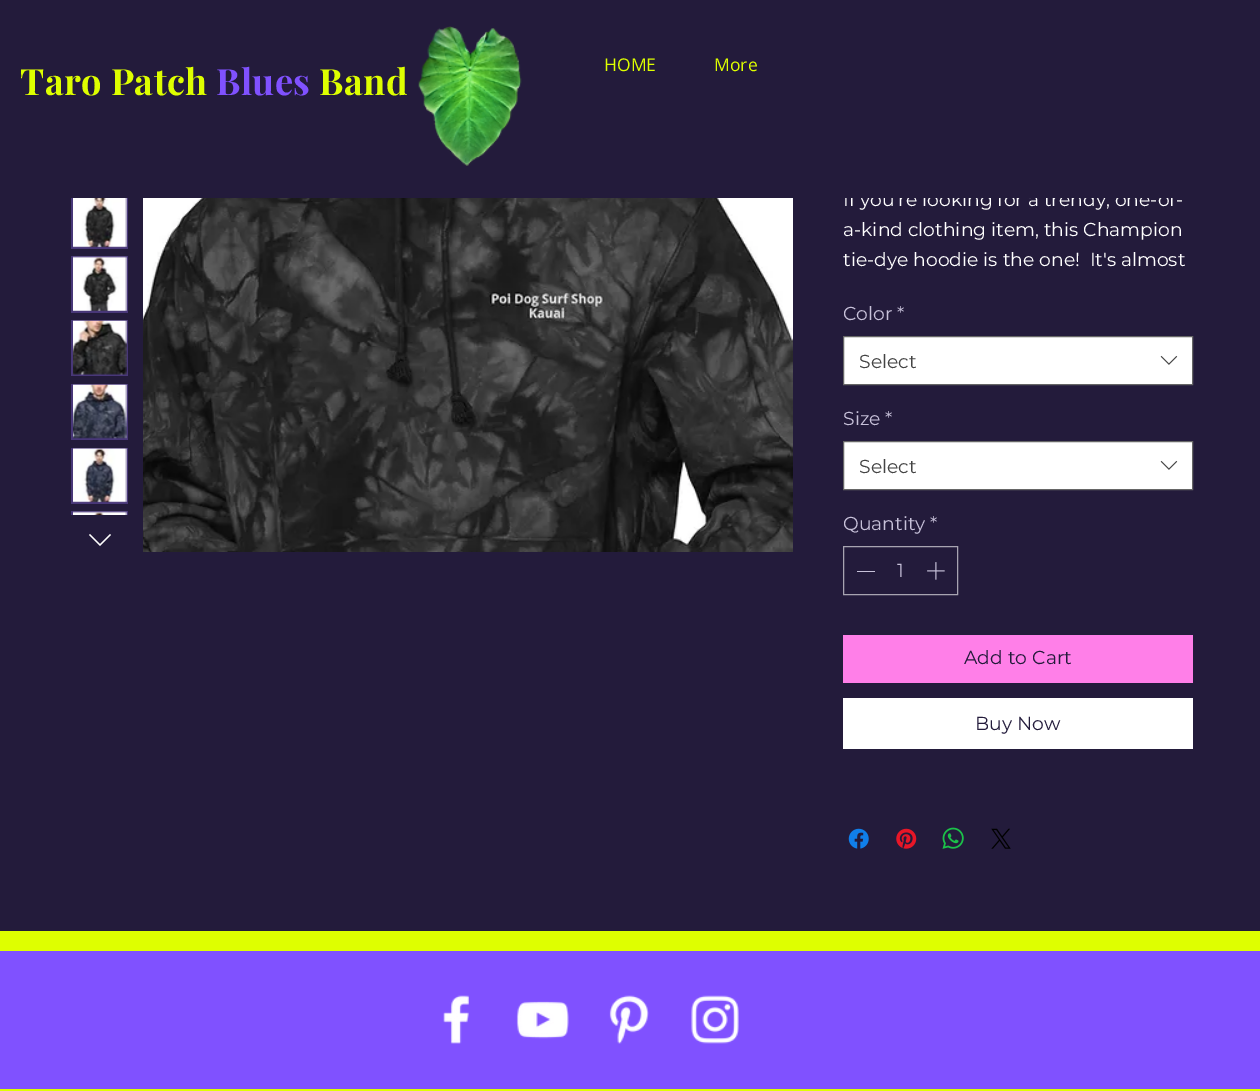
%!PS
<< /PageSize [1260 1091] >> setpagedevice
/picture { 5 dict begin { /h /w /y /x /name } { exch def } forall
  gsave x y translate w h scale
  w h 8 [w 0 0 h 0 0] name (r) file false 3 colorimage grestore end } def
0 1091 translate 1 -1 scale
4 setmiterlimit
0.137 0.106 0.231 setrgbcolor
0 0 1260 1091 rectfill
/PlayfairDisplay-Bold [36.25 0 0 -36.25 0 0] selectfont
0.871 1 0 setrgbcolor
20 95 moveto 0.4 0 (Taro Patch) ashow
0.502 0.318 1 setrgbcolor
216 95 moveto 0.4 0 (Blues) ashow
0.871 1 0 setrgbcolor
319 95 moveto 0.4 0 (Band) ashow
(img1.rgb) 418 26 104 140 picture
/OpenSans-Regular [17.5 0 0 -17.5 0 0] selectfont
604 71 moveto (HOME) show
714 71 moveto (More) show
/Montserrat-Regular [18.75 0 0 -18.75 0 0] selectfont
1 setgray
843 206 moveto (If you're looking for a trendy, one-of-) show
0.137 0.106 0.231 setrgbcolor
844 192 332 6 rectfill
0.282 0.216 0.471 setrgbcolor
71 198 57 51 rectfill
(img2.rgb) 73 198 54 50 picture
71 256 57 57 rectfill
(img3.rgb) 73 256 54 55 picture
71 320 57 56 rectfill
(img4.rgb) 73 320 54 55 picture
71 384 57 56 rectfill
(img5.rgb) 73 384 54 55 picture
71 448 57 56 rectfill
(img6.rgb) 73 448 54 55 picture
71 511 57 4 rectfill
(img7.rgb) 73 511 54 4 picture
1 setgray
newpath 110 534 moveto 111 535 lineto 100 546 lineto 89 535 lineto 90 534 lineto 100 544 lineto closepath eofill
(img8.rgb) 143 198 650 354 picture
843 236 moveto (a-kind clothing item, this Champion) show
843 266 moveto (tie-dye hoodie is the one!  It's almost) show
0.78 0.757 0.851 setrgbcolor
843 320 moveto (Color *) show
1 setgray
newpath 843.5 336.5 moveto 1192.5 336.5 lineto 1192.5 384.5 lineto 843.5 384.5 lineto closepath gsave fill grestore
0.4 setgray
stroke
0.267 setgray
859 368 moveto (Select) show
(img9.rgb) 1160 355 18 10 picture
0.78 0.757 0.851 setrgbcolor
843 425 moveto (Size *) show
1 setgray
newpath 843.5 441.5 moveto 1192.5 441.5 lineto 1192.5 489.5 lineto 843.5 489.5 lineto closepath gsave fill grestore
0.4 setgray
stroke
0.267 setgray
859 473 moveto (Select) show
(img9.rgb) 1160 460 18 10 picture
0.78 0.757 0.851 setrgbcolor
843 530 moveto (Quantity *) show
0.655 0.643 0.694 setrgbcolor
843.5 546.5 114 48 rectstroke
0.78 0.757 0.851 setrgbcolor
857 571 18 1 rectfill
897 577 moveto (1) show
(img10.rgb) 927 562 18 18 picture
1 0.498 0.91 setrgbcolor
843 635 350 48 rectfill
0.137 0.106 0.231 setrgbcolor
964 664 moveto (Add to Cart) show
1 setgray
843 698 350 51 rectfill
0.137 0.106 0.231 setrgbcolor
975 730 moveto (Buy Now) show
(img11.rgb) 848 828 21 21 picture
(img12.rgb) 896 828 21 21 picture
(img13.rgb) 942 827 22 22 picture
(img14.rgb) 991 828 20 21 picture
0.871 1 0 setrgbcolor
0 931 1260 160 rectfill
0.502 0.318 1 setrgbcolor
0 951 1260 138 rectfill
(img15.rgb) 443 995 26 49 picture
(img16.rgb) 516 1001 53 38 picture
(img17.rgb) 609 995 40 49 picture
(img18.rgb) 691 995 48 49 picture
showpage
